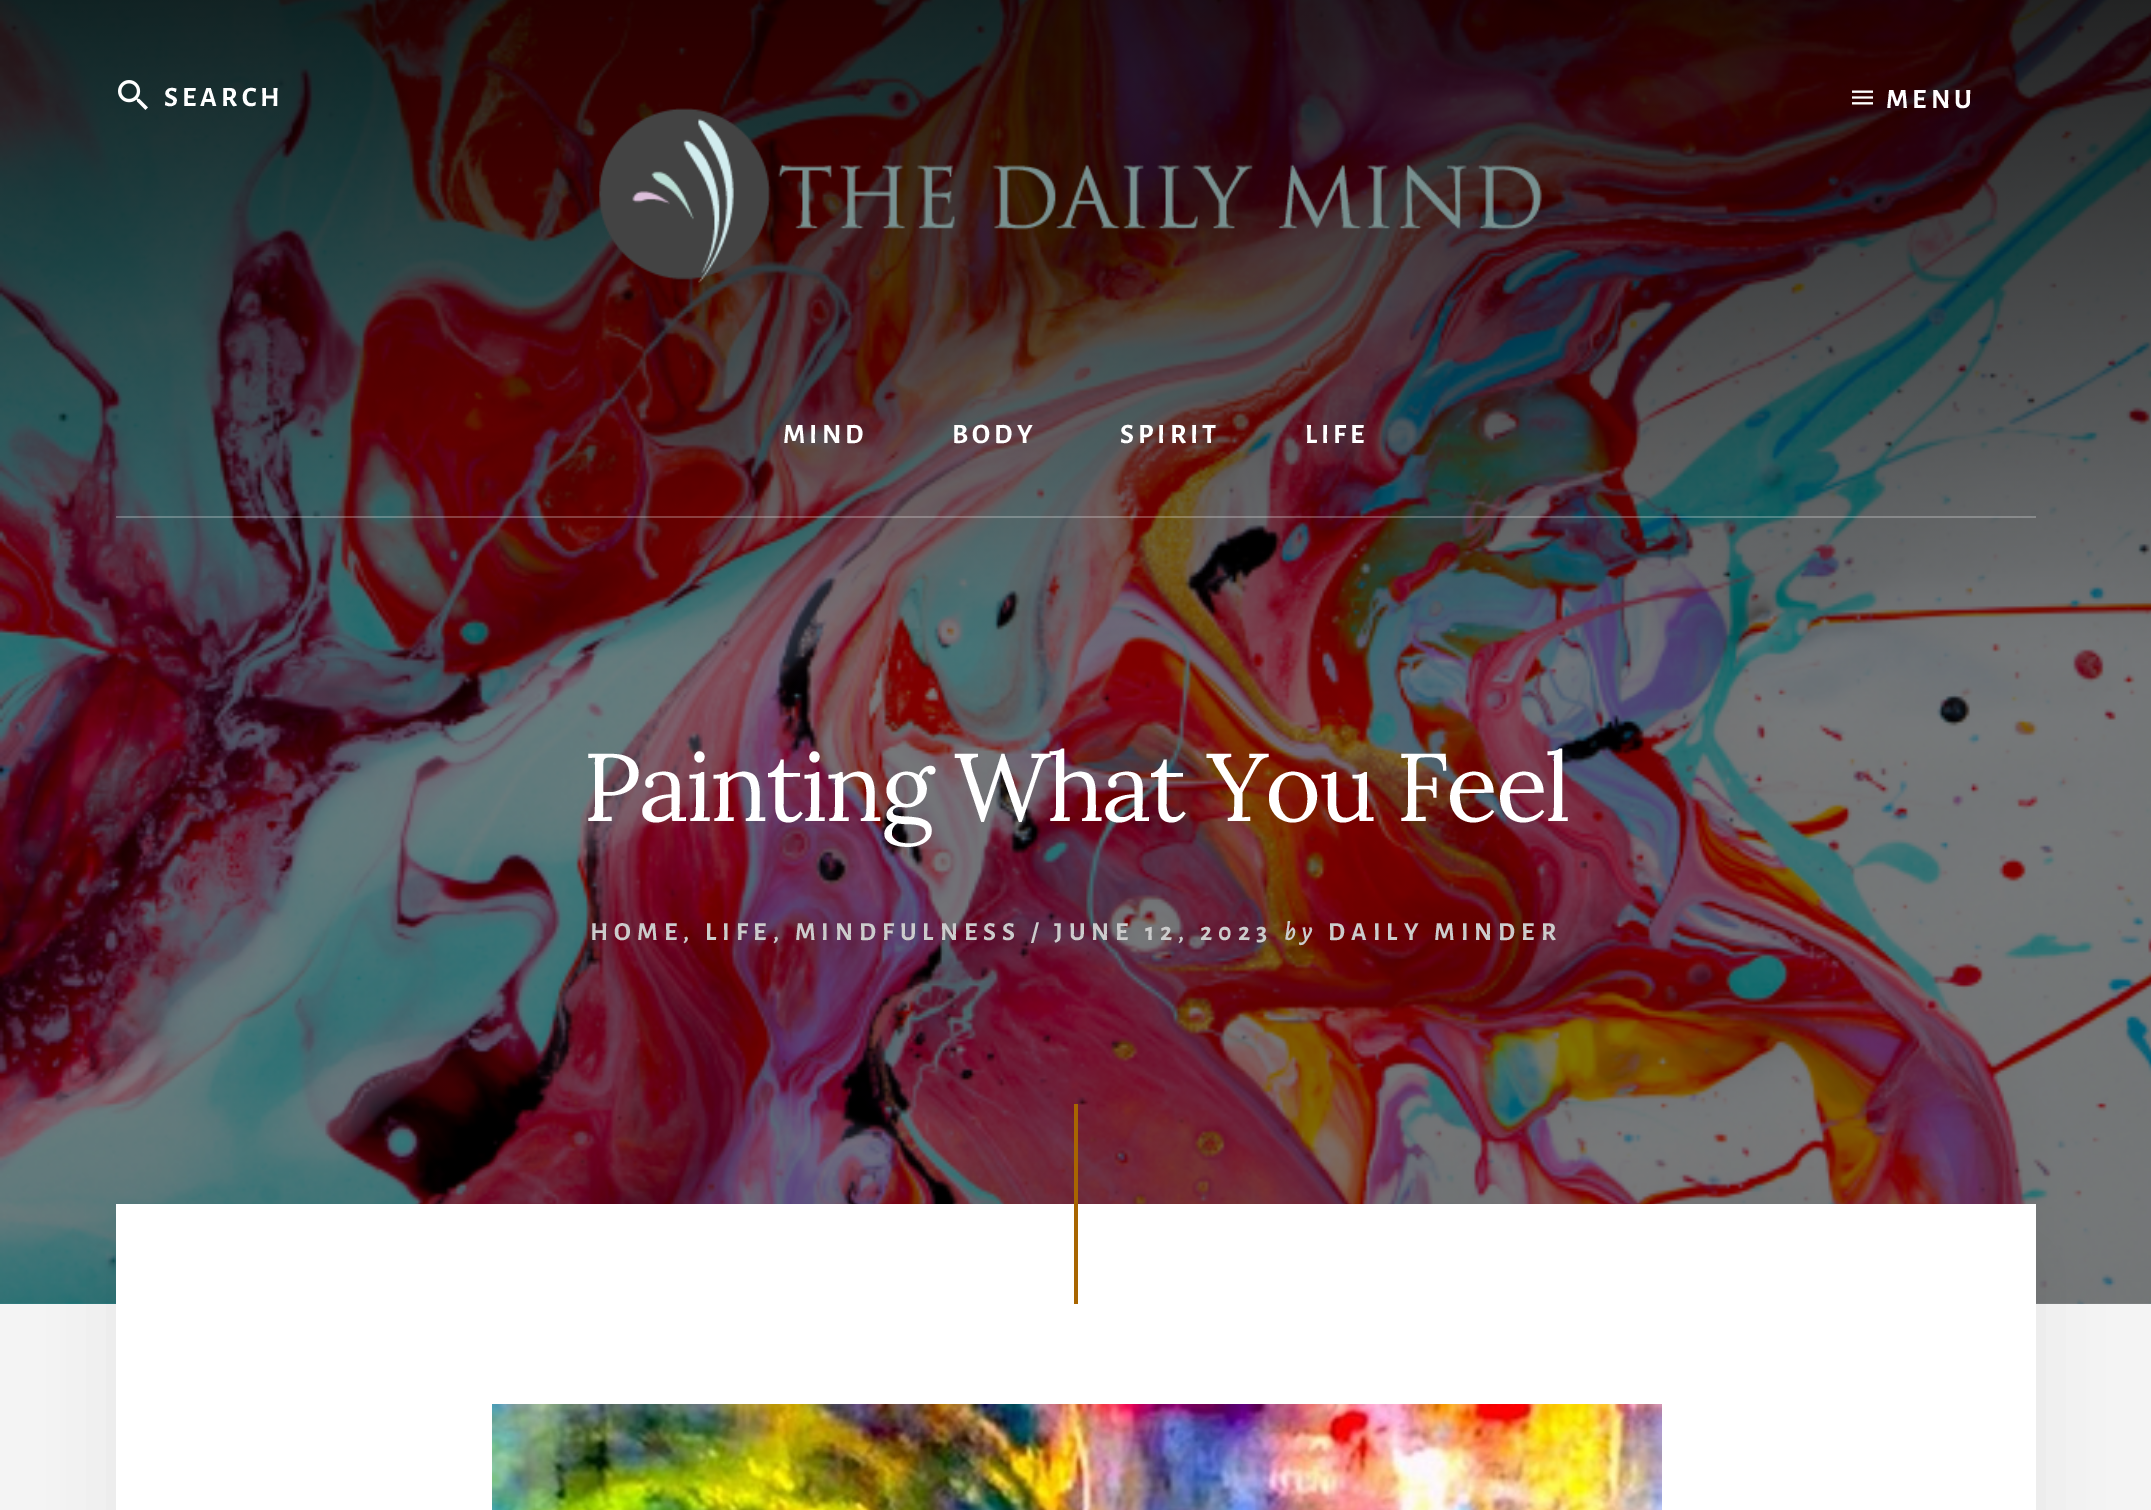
%!PS
<< /PageSize [2151 1510] /PageUsesTransparency true >> setpagedevice
/alpha { dup .setfillconstantalpha .setstrokeconstantalpha } def
/roundrect { 5 dict begin { /r /h /w /y /x } { exch def } forall
  x r add y moveto x w add y 2 copy h add r arct x w add y h add x 1 index r arct
  x y h add x y r arct x y 2 copy exch w add exch r arct closepath end } def
/shadow { 12 dict begin { /a /b /q /h /w /y /x } { exch def } forall gsave /was 0 def
  9 -2 -9 { dup b mul 4 div /e exch def 1 sub .425 mul 2.718 exch exp 1 add a .99 .min exch div /now exch def
    1 1 now sub 1 was sub div sub alpha /was now def
    w h .min e 2 mul add 0 gt { x e sub y e sub w e 2 mul add h e 2 mul add
      q e add b .6 mul add w h .min 2 div e add .min 0 .max roundrect fill } if } for grestore end } def
/picture { 5 dict begin { /h /w /y /x /name } { exch def } forall
  gsave x y translate w h scale
  w h 8 [w 0 0 h 0 0] name (r) file false 3 colorimage grestore end } def
0 .pushpdf14devicefilter
0 1510 translate 1 -1 scale
4 setmiterlimit
0.957 setgray
0 0 2151 1510 rectfill
(img1.rgb) 0 0 2151 1304 picture
(img2.rgb) 118 80 30 30 picture
/AlegreyaSans-Bold [28 0 0 -28 0 0] selectfont
1 setgray
164 106 moveto 4 0 (SEARCH) ashow
(img3.rgb) 1852 90 21 15 picture
1886 108 moveto 4 0 (MENU) ashow
(img4.rgb) 599 108 943 175 picture
0.25 alpha
116 516 1920 2 rectfill
1 alpha
783 443 moveto 4 0 (MIND) ashow
952 443 moveto 4 0 (BODY) ashow
1120 443 moveto 4 0 (SPIRIT) ashow
1305 443 moveto 4 0 (LIFE) ashow
/Lora-Regular [96 0 0 -96 0 0] selectfont
583 821 moveto -2.5 0 (Painting What You Feel) ashow
/AlegreyaSans-Bold [26 0 0 -26 0 0] selectfont
0.8 setgray
590 940 moveto 6 0 (HOME, LIFE, MINDFULNESS / JUNE 12, 2023) ashow
/AlegreyaSans-BoldItalic [26 0 0 -26 0 0] selectfont
1284 940 moveto 6 0 (by) ashow
/AlegreyaSans-Bold [26 0 0 -26 0 0] selectfont
1328 940 moveto 6 0 (DAILY MINDER) ashow
0 setgray
116 1254 1920 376 0 40 0.05 shadow
1 setgray
116 1204 1920 306 rectfill
0.659 0.396 0 setrgbcolor
1074 1104 4 200 rectfill
(img5.rgb) 492 1404 1170 106 picture
.poppdf14devicefilter showpage
